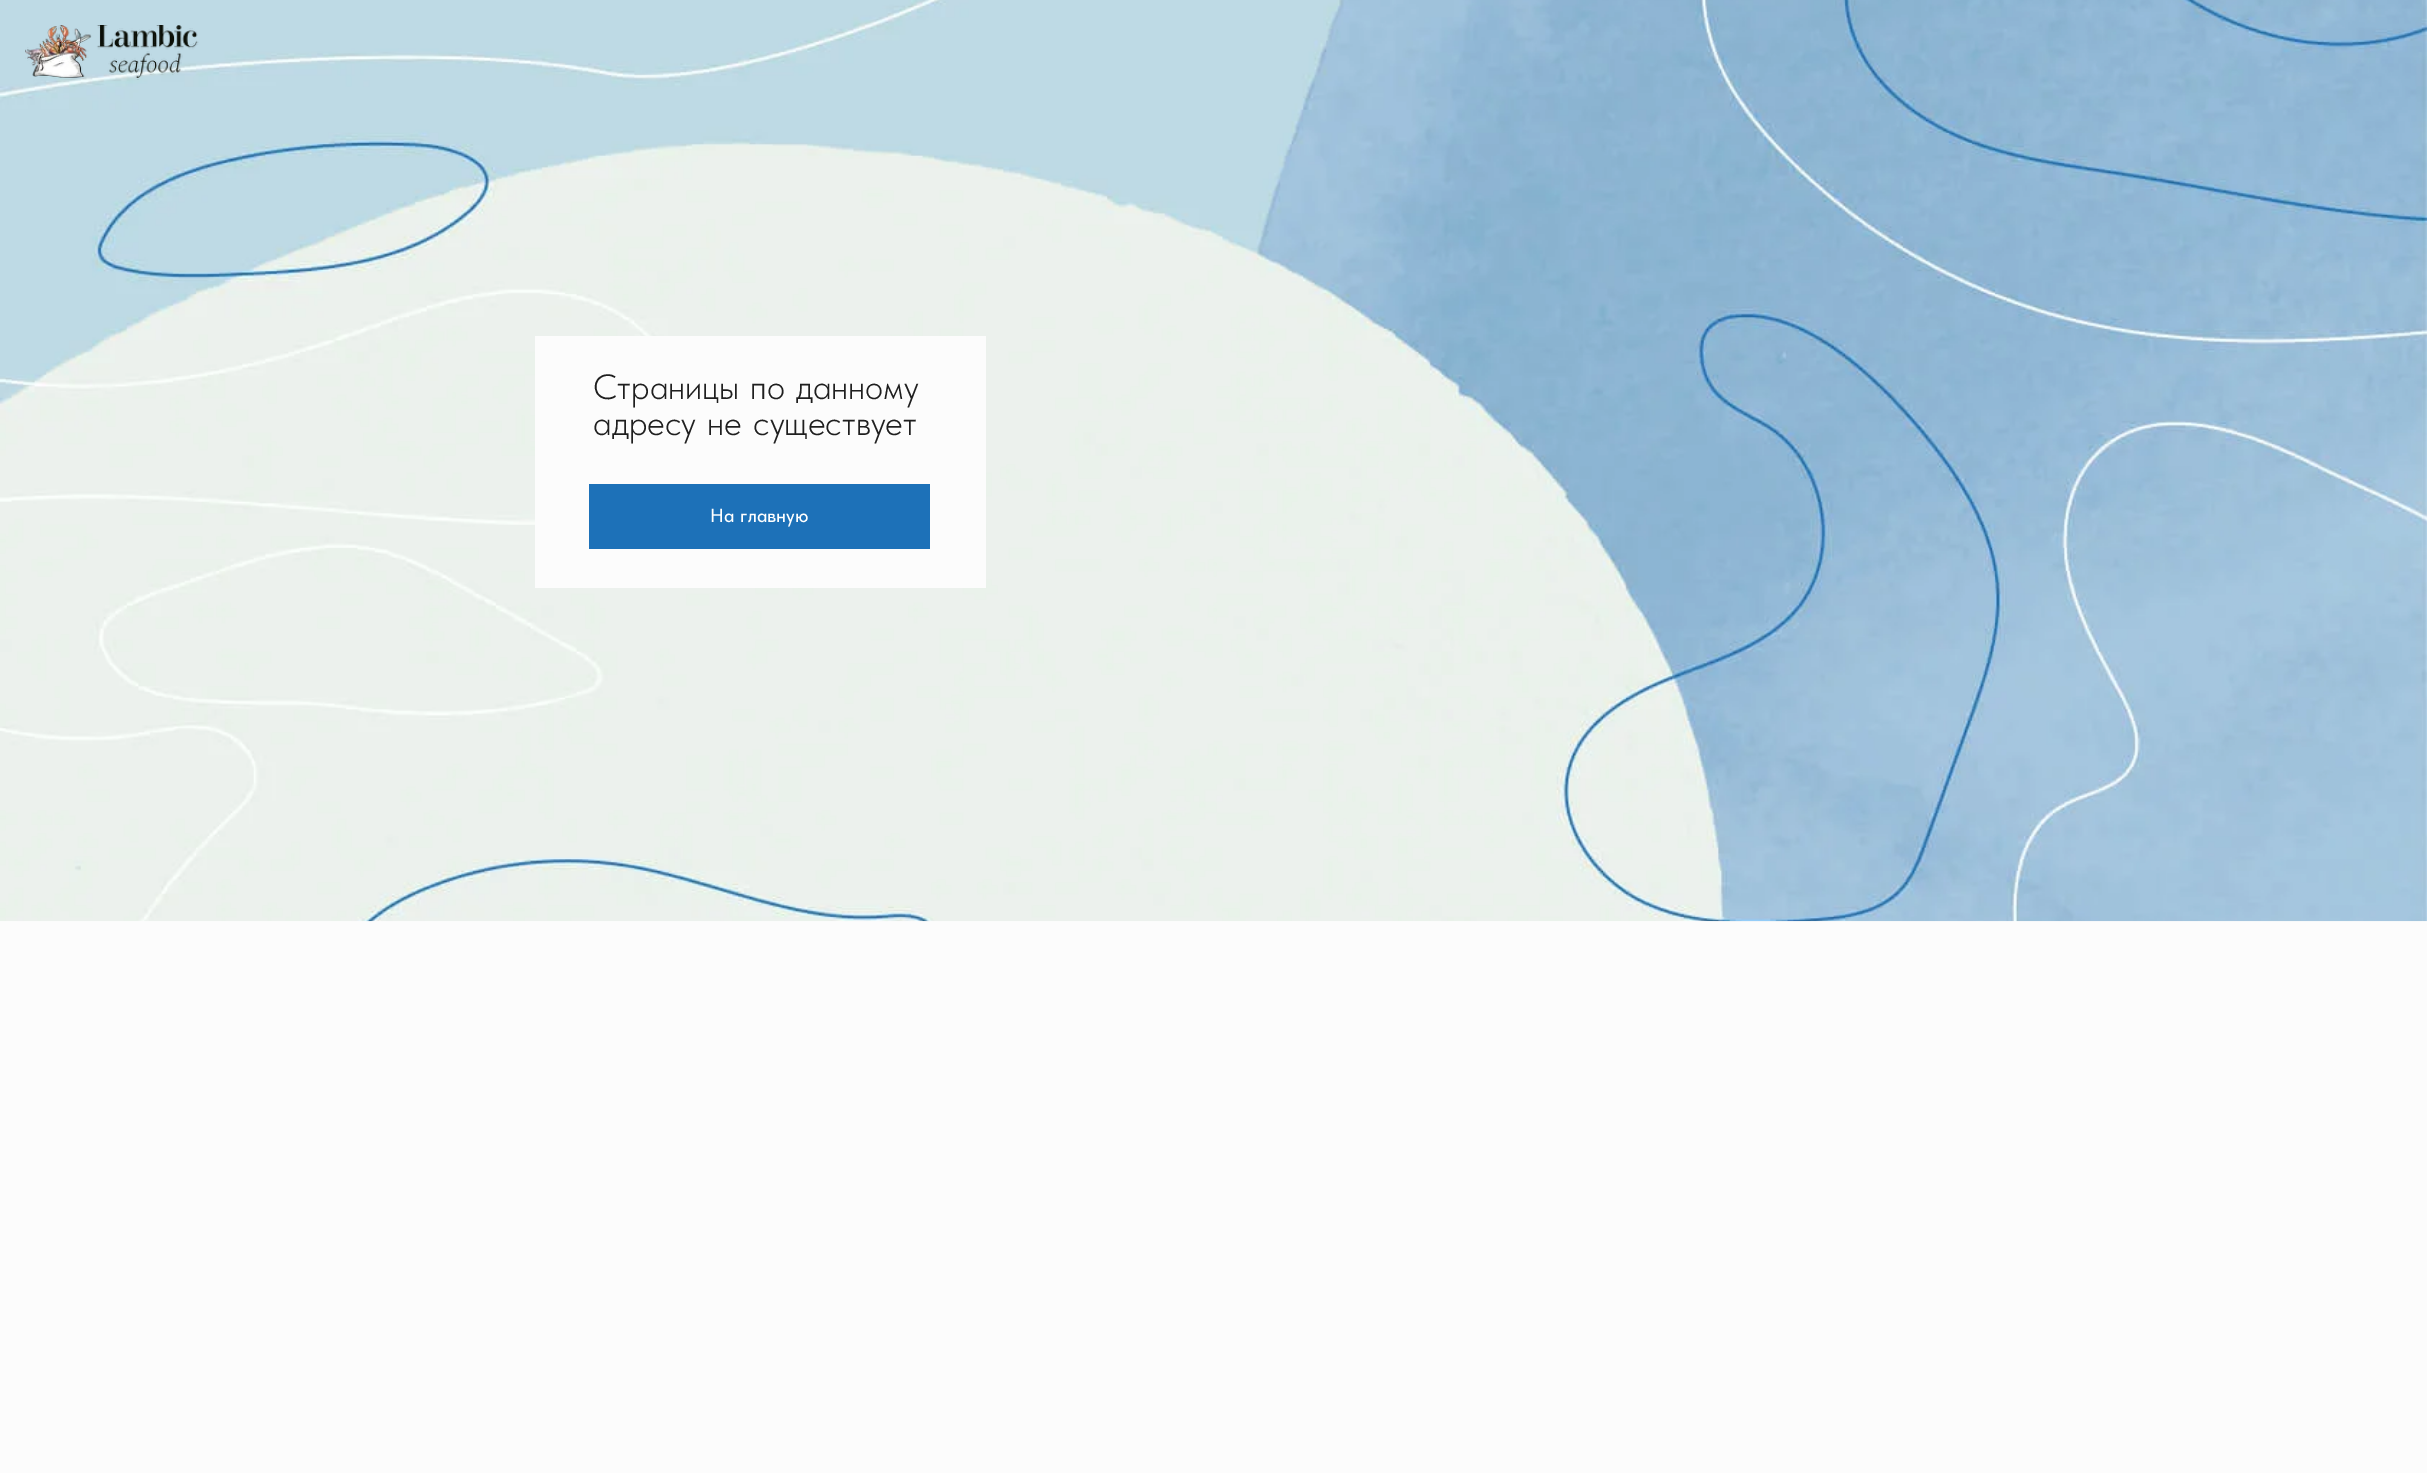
%!PS
<< /PageSize [2427 1473] >> setpagedevice
/picture { 5 dict begin { /h /w /y /x /name } { exch def } forall
  gsave x y translate w h scale
  w h 8 [w 0 0 h 0 0] name (r) file false 3 colorimage grestore end } def
0 1473 translate 1 -1 scale
4 setmiterlimit
0.988 setgray
0 0 2427 1473 rectfill
(img1.rgb) 0 0 2427 922 picture
(img2.rgb) 25 25 174 55 picture
535 336 451 252 rectfill
/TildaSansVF-Light [35 0 0 -35 0 0] selectfont
0.122 setgray
593 399 moveto 2 0 32 (Страницы по данному) widthshow
593 435 moveto 2 0 32 (адресу не существует) widthshow
0.114 0.443 0.722 setrgbcolor
589 484 341 65 rectfill
/TildaSansVF-Medium [18.75 0 0 -18.75 0 0] selectfont
1 setgray
710 522 moveto 1 0 32 (На главную) widthshow
showpage
